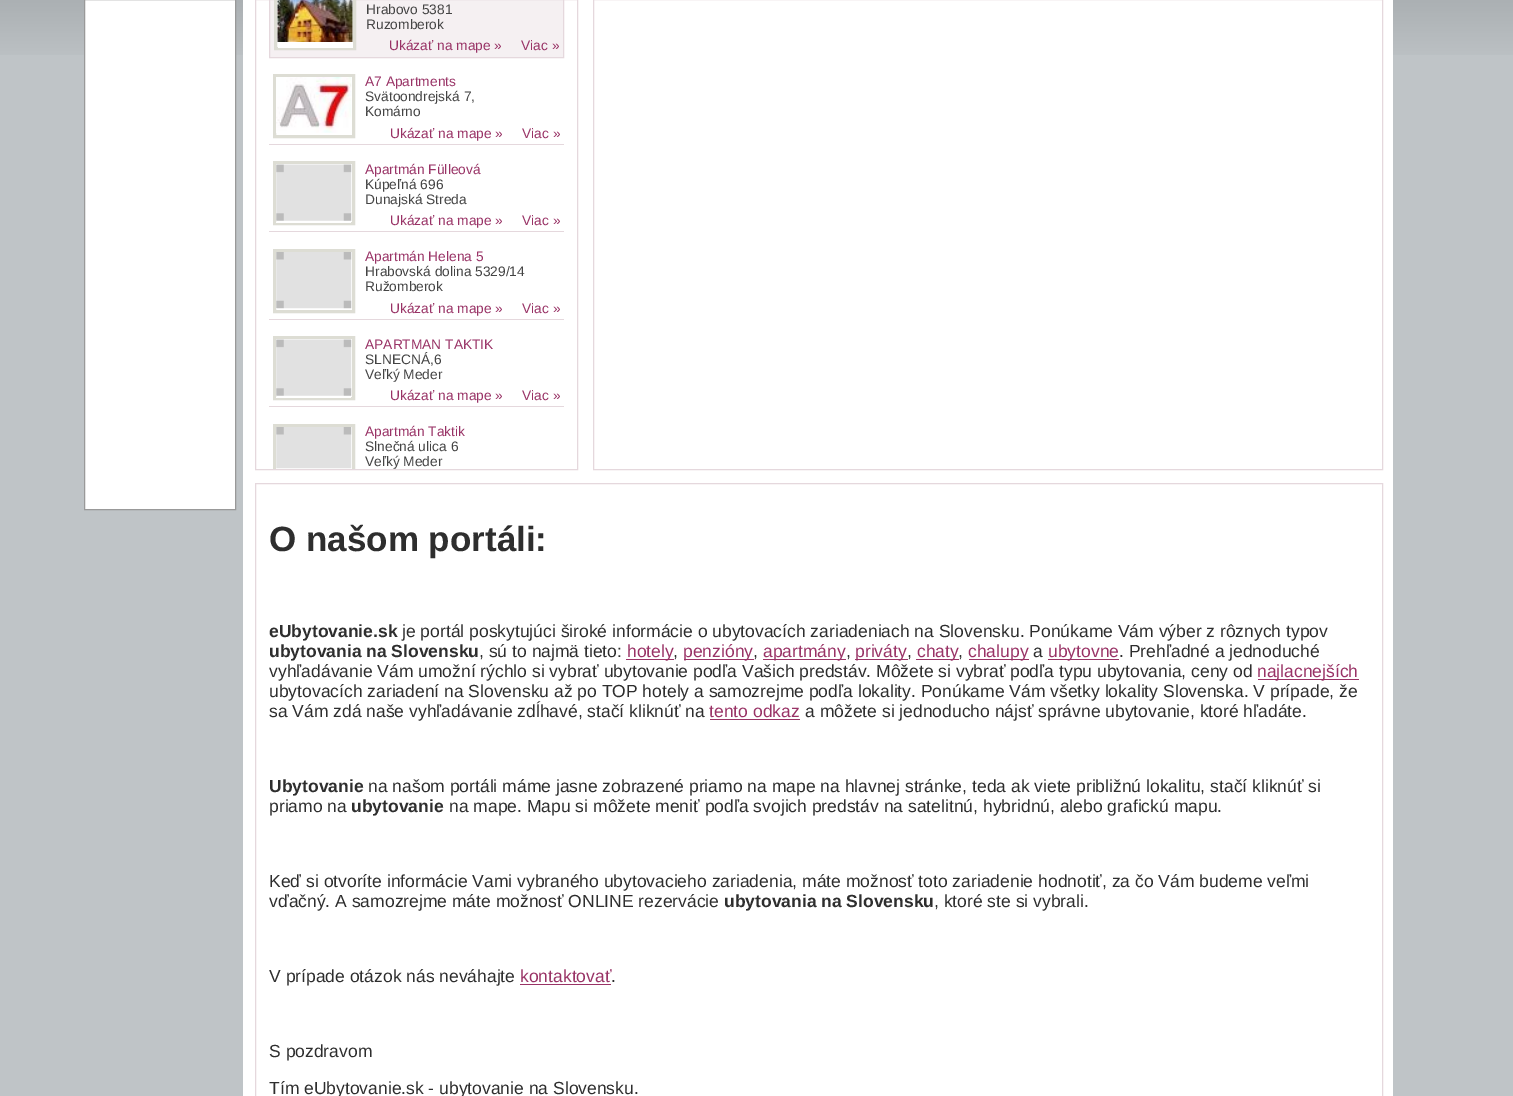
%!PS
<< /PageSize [1513 1096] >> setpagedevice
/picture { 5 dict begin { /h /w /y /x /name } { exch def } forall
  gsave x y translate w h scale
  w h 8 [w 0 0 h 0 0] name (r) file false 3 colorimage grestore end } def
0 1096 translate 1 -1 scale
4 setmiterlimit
0.749 0.769 0.78 setrgbcolor
0 0 1513 1096 rectfill
(img1.rgb) 0 0 1513 55 picture
1 setgray
newpath 84.5 -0.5 moveto 235.5 -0.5 lineto 235.5 509.5 lineto 84.5 509.5 lineto closepath gsave fill grestore
0.6 setgray
stroke
1 setgray
243 0 1150 1096 rectfill
0.898 0.847 0.867 setrgbcolor
255.5 -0.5 322 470 rectstroke
0.961 0.941 0.949 setrgbcolor
newpath 269.5 -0.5 moveto 563.5 -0.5 lineto 563.5 57.5 lineto 269.5 57.5 lineto closepath gsave fill grestore
0.898 0.847 0.867 setrgbcolor
stroke
1 setgray
newpath 275.5 -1.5 moveto 354.5 -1.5 lineto 354.5 48.5 lineto 275.5 48.5 lineto closepath gsave fill grestore
0.867 0.867 0.831 setrgbcolor
3 setlinewidth
stroke
(img2.rgb) 277 0 76 42 picture
1 setgray
278 47 75 1 rectfill
/LiberationSans-Regular [13.75 0 0 -13.75 0 0] selectfont
0.267 setgray
366 14 moveto (Hrabovo 5381) show
366 29 moveto (Ruzomberok) show
0.6 0.2 0.4 setrgbcolor
389 50 moveto (Ukázať na mape ») show
521 50 moveto (Viac ») show
0.898 0.847 0.867 setrgbcolor
269 144 295 1 rectfill
0.867 0.867 0.831 setrgbcolor
274.5 75.5 79 61 rectstroke
(img3.rgb) 276 77 76 56 picture
0.6 0.2 0.4 setrgbcolor
365 86 moveto (A7 Apartments) show
0.267 setgray
365 101 moveto (Svätoondrejská 7,) show
365 116 moveto (Komárno) show
0.6 0.2 0.4 setrgbcolor
390 138 moveto (Ukázať na mape ») show
522 138 moveto (Viac ») show
0.898 0.847 0.867 setrgbcolor
269 231 295 1 rectfill
0.867 0.867 0.831 setrgbcolor
274.5 162.5 79 61 rectstroke
(img4.rgb) 276 164 76 57 picture
1 setgray
276 222 75 1 rectfill
0.6 0.2 0.4 setrgbcolor
365 174 moveto (Apartmán Fülleová) show
0.267 setgray
365 189 moveto (Kúpeľná 696) show
365 204 moveto (Dunajská Streda) show
0.6 0.2 0.4 setrgbcolor
390 225 moveto (Ukázať na mape ») show
522 225 moveto (Viac ») show
0.898 0.847 0.867 setrgbcolor
269 319 295 1 rectfill
0.867 0.867 0.831 setrgbcolor
274.5 250.5 79 61 rectstroke
(img5.rgb) 276 252 76 57 picture
0.6 0.2 0.4 setrgbcolor
365 261 moveto (Apartmán Helena 5) show
0.267 setgray
365 276 moveto (Hrabovská dolina 5329/14) show
365 291 moveto (Ružomberok) show
0.6 0.2 0.4 setrgbcolor
390 313 moveto (Ukázať na mape ») show
522 313 moveto (Viac ») show
0.898 0.847 0.867 setrgbcolor
269 406 295 1 rectfill
0.867 0.867 0.831 setrgbcolor
274.5 337.5 79 61 rectstroke
(img4.rgb) 276 339 76 57 picture
1 setgray
276 397 75 1 rectfill
0.6 0.2 0.4 setrgbcolor
365 349 moveto (APARTMAN TAKTIK) show
0.267 setgray
365 364 moveto (SLNECNÁ,6) show
365 379 moveto (Veľký Meder) show
0.6 0.2 0.4 setrgbcolor
390 400 moveto (Ukázať na mape ») show
522 400 moveto (Viac ») show
0.898 0.847 0.867 setrgbcolor
1 setlinewidth
255.5 483.5 1127 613 rectstroke
gsave
256 0 320 469 rectclip
0.867 0.867 0.831 setrgbcolor
3 setlinewidth
274.5 425.5 79 61 rectstroke
grestore
(img6.rgb) 276 427 76 42 picture
0.6 0.2 0.4 setrgbcolor
365 436 moveto (Apartmán Taktik) show
0.267 setgray
365 451 moveto (Slnečná ulica 6) show
365 466 moveto (Veľký Meder) show
0.898 0.847 0.867 setrgbcolor
593.5 -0.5 789 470 rectstroke
/LiberationSans-Bold [35 0 0 -35 0 0] selectfont
0.18 setgray
269 551 moveto (O našom portáli:) show
/LiberationSans-Bold [17.5 0 0 -17.5 0 0] selectfont
269 637 moveto (eUbytovanie.sk) show
/LiberationSans-Regular [17.5 0 0 -17.5 0 0] selectfont
402 637 moveto (je portál poskytujúci široké informácie o ubytovacích zariadeniach na Slovensku. Ponúkame Vám výber z rôznych typov) show
/LiberationSans-Bold [17.5 0 0 -17.5 0 0] selectfont
269 657 moveto (ubytovania na Slovensku) show
/LiberationSans-Regular [17.5 0 0 -17.5 0 0] selectfont
479 657 moveto (, sú to najmä tieto:) show
0.6 0.2 0.4 setrgbcolor
626 659 48 1 rectfill
627 657 moveto (hotely) show
0.18 setgray
673 657 moveto (,) show
0.6 0.2 0.4 setrgbcolor
684 659 70 1 rectfill
683 657 moveto (penzióny) show
0.18 setgray
753 657 moveto (,) show
0.6 0.2 0.4 setrgbcolor
763 659 83 1 rectfill
763 657 moveto (apartmány) show
0.18 setgray
846 657 moveto (,) show
0.6 0.2 0.4 setrgbcolor
855 659 53 1 rectfill
855 657 moveto (priváty) show
0.18 setgray
907 657 moveto (,) show
0.6 0.2 0.4 setrgbcolor
916 659 43 1 rectfill
917 657 moveto (chaty) show
0.18 setgray
958 657 moveto (,) show
0.6 0.2 0.4 setrgbcolor
969 659 60 1 rectfill
968 657 moveto (chalupy) show
0.18 setgray
1033 657 moveto (a) show
0.6 0.2 0.4 setrgbcolor
1048 659 71 1 rectfill
1048 657 moveto (ubytovne) show
0.18 setgray
1119 657 moveto (. Prehľadné a jednoduché) show
269 677 moveto (vyhľadávanie Vám umožní rýchlo si vybrať ubytovanie podľa Vašich predstáv. Môžete si vybrať podľa typu ubytovania, ceny od) show
0.6 0.2 0.4 setrgbcolor
1258 679 101 1 rectfill
1257 677 moveto (najlacnejších) show
0.18 setgray
269 697 moveto (ubytovacích zariadení na Slovensku až po TOP hotely a samozrejme podľa lokality. Ponúkame Vám všetky lokality Slovenska. V prípade, že) show
269 717 moveto (sa Vám zdá naše vyhľadávanie zdĺhavé, stačí kliknúť na) show
0.6 0.2 0.4 setrgbcolor
709 717 moveto (tento odkaz) show
710 719 90 1 rectfill
0.18 setgray
805 717 moveto (a môžete si jednoducho nájsť správne ubytovanie, ktoré hľadáte.) show
/LiberationSans-Bold [17.5 0 0 -17.5 0 0] selectfont
269 792 moveto (Ubytovanie) show
/LiberationSans-Regular [17.5 0 0 -17.5 0 0] selectfont
368 792 moveto (na našom portáli máme jasne zobrazené priamo na mape na hlavnej stránke, teda ak viete približnú lokalitu, stačí kliknúť si) show
269 812 moveto (priamo na) show
/LiberationSans-Bold [17.5 0 0 -17.5 0 0] selectfont
351 812 moveto (ubytovanie) show
/LiberationSans-Regular [17.5 0 0 -17.5 0 0] selectfont
449 812 moveto (na mape. Mapu si môžete meniť podľa svojich predstáv na satelitnú, hybridnú, alebo grafickú mapu.) show
269 887 moveto (Keď si otvoríte informácie Vami vybraného ubytovacieho zariadenia, máte možnosť toto zariadenie hodnotiť, za čo Vám budeme veľmi) show
269 907 moveto (vďačný. A samozrejme máte možnosť ONLINE rezervácie) show
/LiberationSans-Bold [17.5 0 0 -17.5 0 0] selectfont
724 907 moveto (ubytovania na Slovensku) show
/LiberationSans-Regular [17.5 0 0 -17.5 0 0] selectfont
934 907 moveto (, ktoré ste si vybrali.) show
269 982 moveto (V prípade otázok nás neváhajte) show
0.6 0.2 0.4 setrgbcolor
520 982 moveto (kontaktovať) show
520 984 91 1 rectfill
0.18 setgray
611 982 moveto (.) show
269 1057 moveto (S pozdravom) show
269 1094 moveto (Tím eUbytovanie.sk - ubytovanie na Slovensku.) show
showpage
